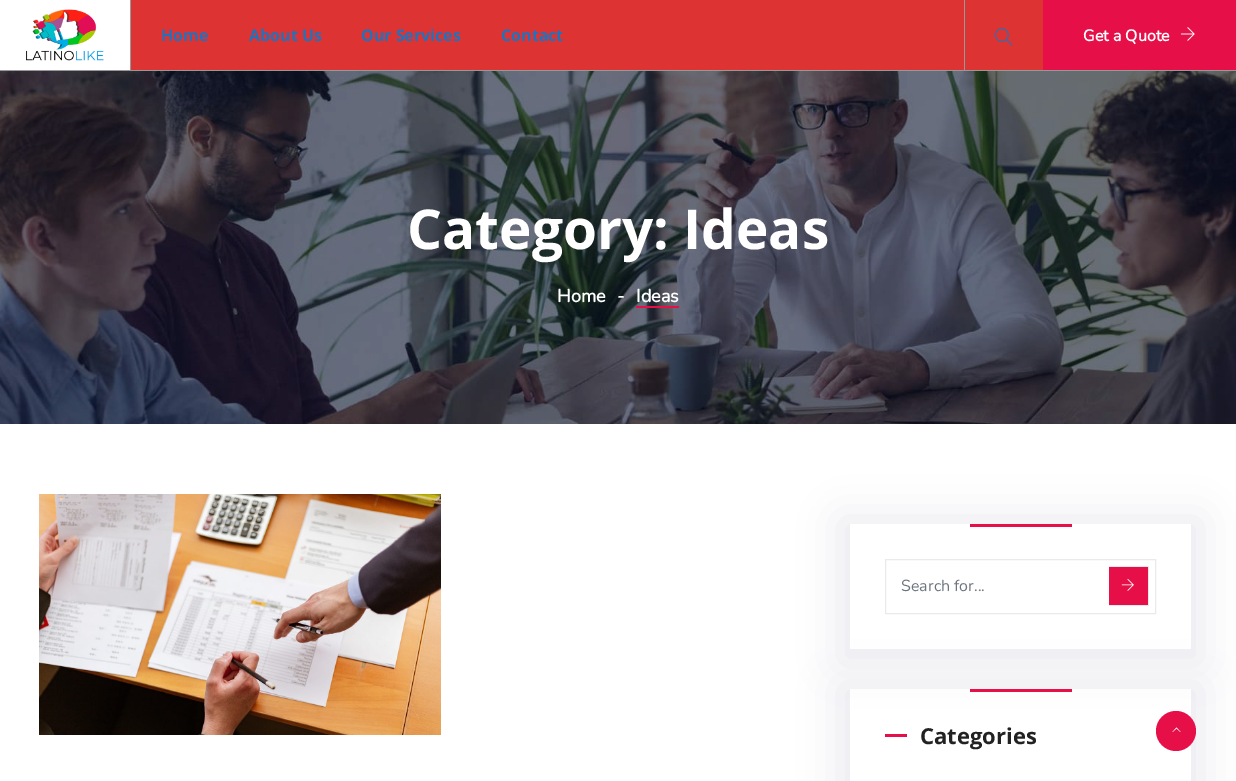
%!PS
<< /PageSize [1236 781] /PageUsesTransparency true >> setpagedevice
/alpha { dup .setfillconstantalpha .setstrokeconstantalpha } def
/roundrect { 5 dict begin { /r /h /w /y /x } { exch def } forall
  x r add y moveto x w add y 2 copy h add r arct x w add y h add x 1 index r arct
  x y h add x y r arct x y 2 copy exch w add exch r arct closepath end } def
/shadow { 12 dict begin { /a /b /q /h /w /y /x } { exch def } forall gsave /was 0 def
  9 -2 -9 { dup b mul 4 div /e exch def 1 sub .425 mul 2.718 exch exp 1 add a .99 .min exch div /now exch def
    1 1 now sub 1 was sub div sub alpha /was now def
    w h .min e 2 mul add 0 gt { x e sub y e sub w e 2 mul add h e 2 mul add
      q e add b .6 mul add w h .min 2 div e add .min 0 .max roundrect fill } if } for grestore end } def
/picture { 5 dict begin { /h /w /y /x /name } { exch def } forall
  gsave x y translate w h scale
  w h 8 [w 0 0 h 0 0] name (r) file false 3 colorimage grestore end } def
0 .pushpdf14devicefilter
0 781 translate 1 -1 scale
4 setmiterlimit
1 setgray
0 0 1236 781 rectfill
0.867 0.2 0.2 setrgbcolor
131 0 912 70 rectfill
0.596 setgray
0 70 1236 1 rectfill
130 0 1 70 rectfill
(img1.rgb) 26 9 78 52 picture
/OpenSans-Bold [16 0 0 -16 0 0] selectfont
0.118 0.451 0.745 setrgbcolor
161 41 moveto (Home) show
249 41 moveto (About Us) show
361 41 moveto (Our Services) show
501 41 moveto (Contact) show
0.596 setgray
964 0 1 70 rectfill
(img2.rgb) 995 28 18 18 picture
0.906 0.059 0.278 setrgbcolor
1043 0 193 70 rectfill
/Nunito-Bold [16 0 0 -16 0 0] selectfont
1 setgray
1083 41 moveto (Get a Quote) show
(img3.rgb) 1180 27 15 14 picture
(img4.rgb) 0 71 1236 353 picture
/OpenSans-Bold [55 0 0 -55 0 0] selectfont
407 249 moveto (Category: Ideas) show
/Nunito-Bold [18 0 0 -18 0 0] selectfont
557 302 moveto (Home) show
617 302 moveto (-) show
636 302 moveto (Ideas) show
0.906 0.059 0.278 setrgbcolor
636 306 43 2 rectfill
(img5.rgb) 39 494 402 241 picture
gsave
newpath 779 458 moveto 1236 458 lineto 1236 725 lineto 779 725 lineto closepath 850 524 moveto 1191 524 lineto 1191 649 lineto 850 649 lineto closepath eoclip newpath
0.918 0.918 0.937 setrgbcolor
840 519 361 145 0 20 1 shadow
grestore
970 524 102 3 rectfill
0.918 setgray
885.5 559.5 270 54 rectstroke
/Nunito-ExtraLight [16 0 0 -16 0 0] selectfont
0.424 0.459 0.49 setrgbcolor
901 591 moveto (Search for...) show
0.906 0.059 0.278 setrgbcolor
1109 567 39 38 rectfill
0.918 setgray
1109 566 40 1 rectfill
1148 566 1 40 rectfill
1109 605 40 1 rectfill
(img6.rgb) 1121 578 13 13 picture
gsave
newpath 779 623 moveto 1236 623 lineto 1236 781 lineto 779 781 lineto closepath 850 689 moveto 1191 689 lineto 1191 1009 lineto 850 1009 lineto closepath eoclip newpath
0.918 0.918 0.937 setrgbcolor
840 684 361 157 0 20 1 shadow
grestore
0.906 0.059 0.278 setrgbcolor
970 689 102 3 rectfill
885 734 22 3 rectfill
/OpenSans-Bold [22 0 0 -22 0 0] selectfont
0.133 setgray
920 744 moveto (Categories) show
0.906 0.059 0.278 setrgbcolor
newpath 1176 731 20 0 360 arc closepath fill
1 setgray
newpath 1180.5 732 moveto 1176.5 728.5 lineto 1172.5 732 lineto 1176.5 727.5 lineto closepath fill
.poppdf14devicefilter showpage
